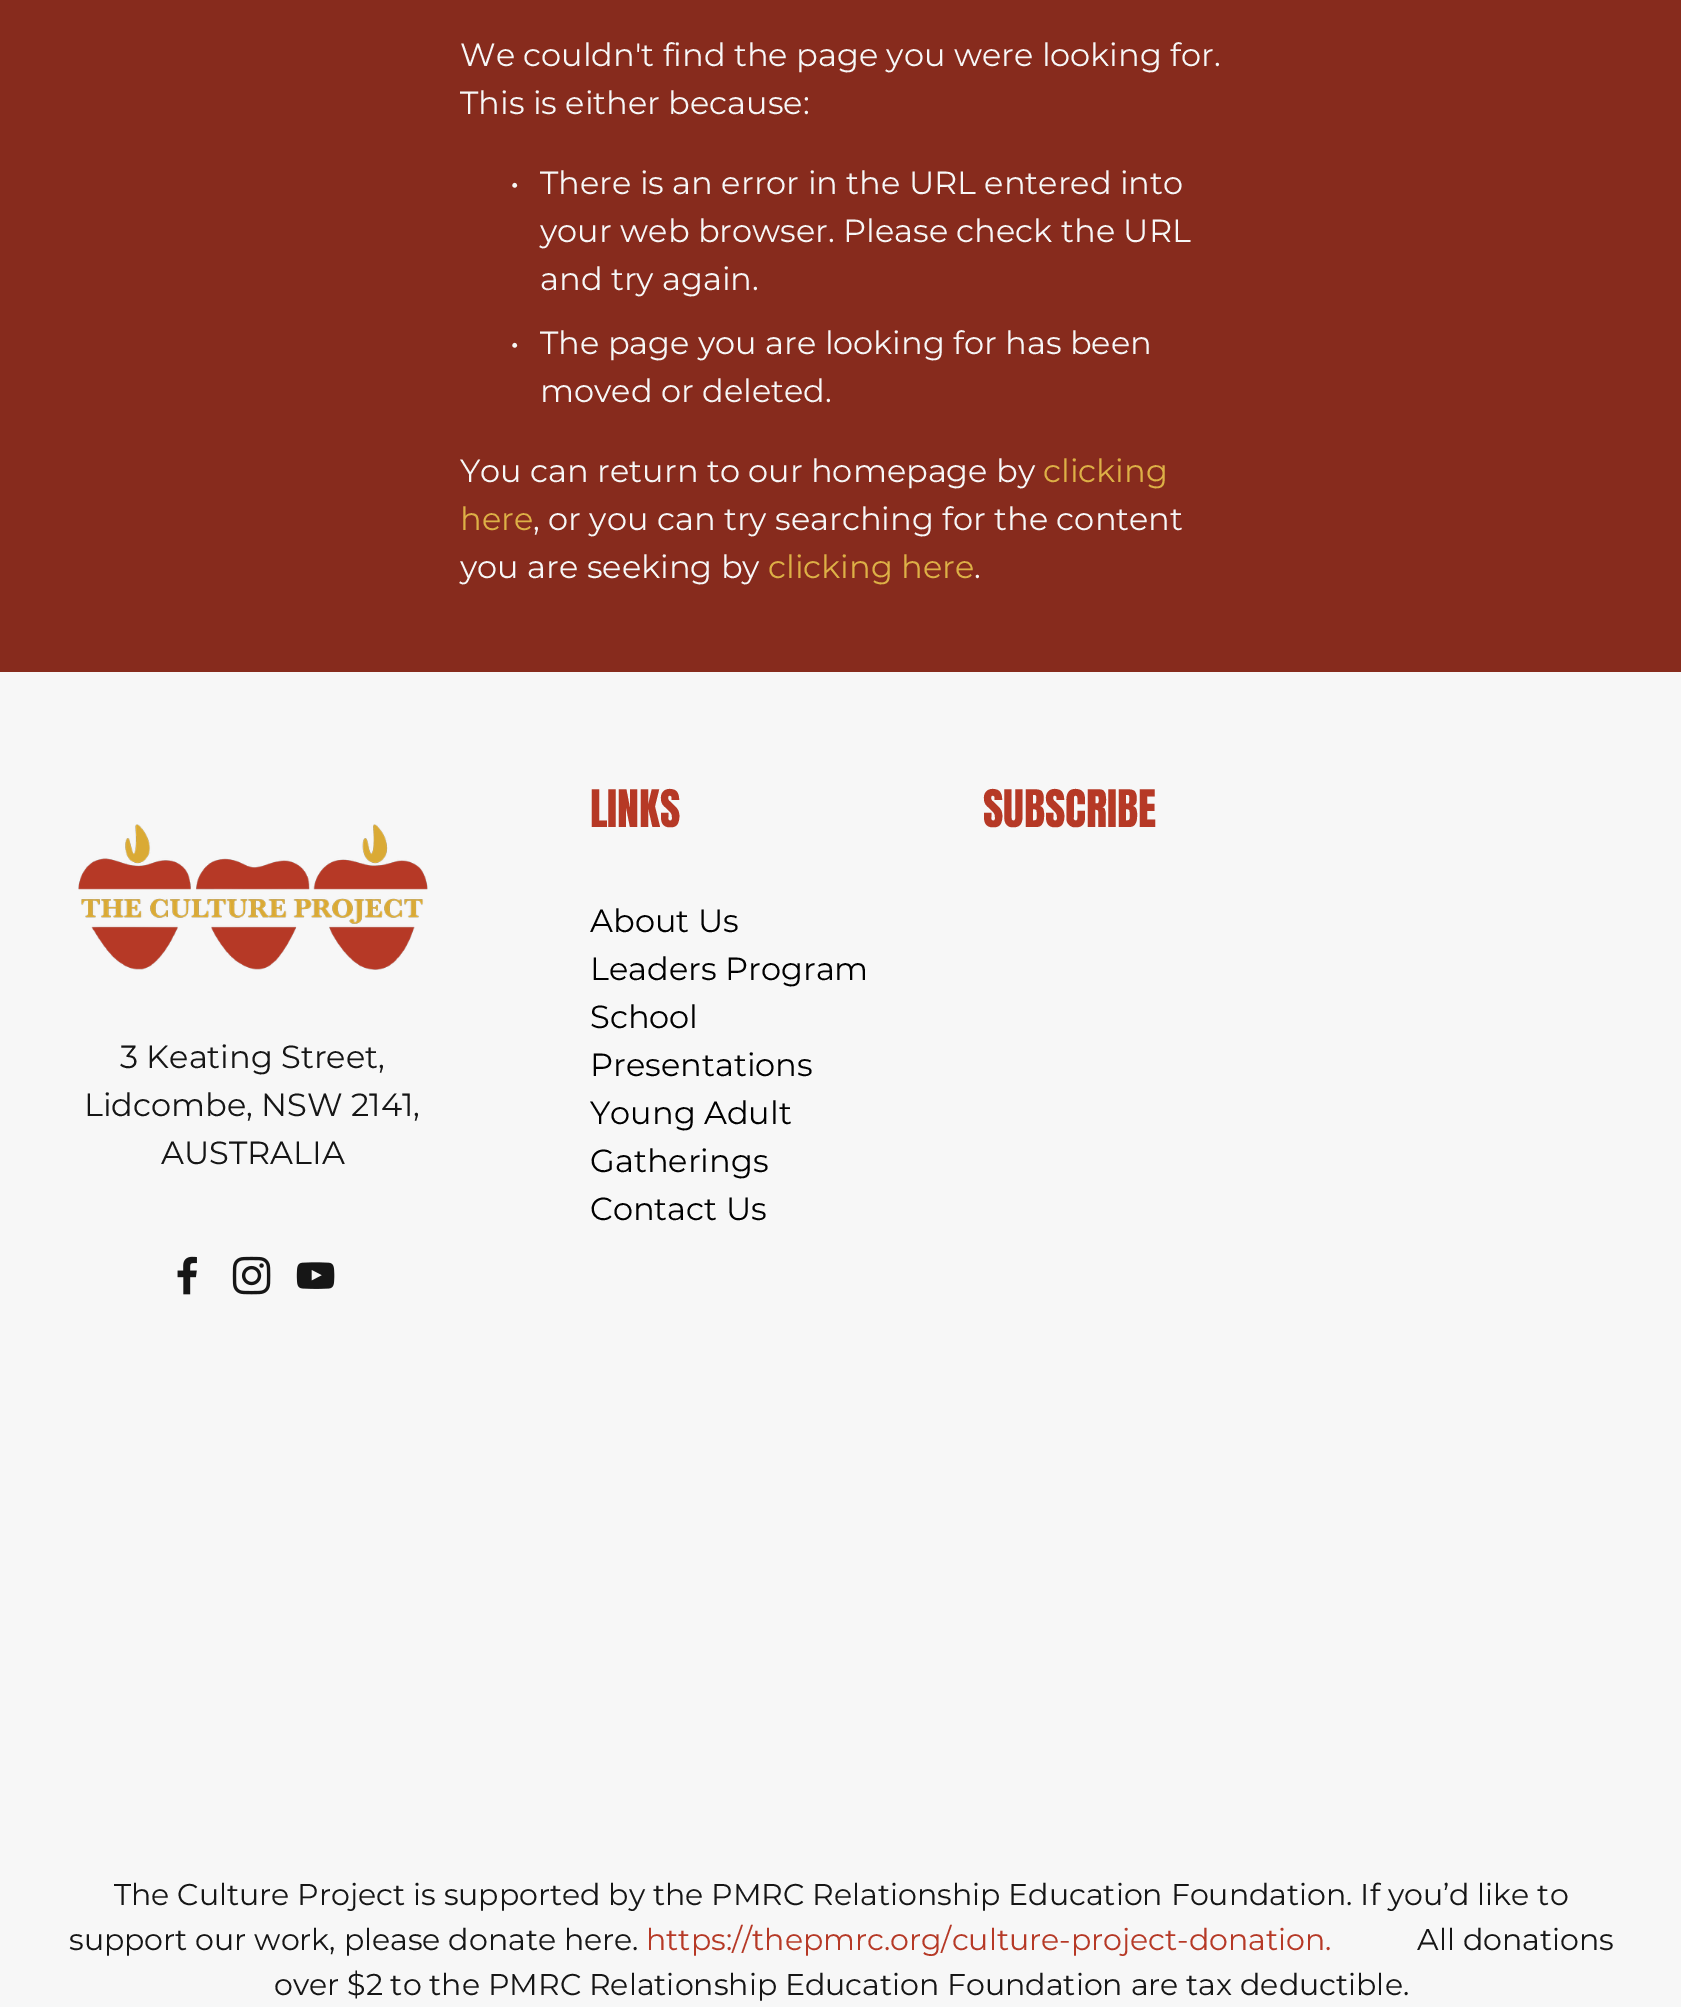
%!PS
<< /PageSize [1681 2007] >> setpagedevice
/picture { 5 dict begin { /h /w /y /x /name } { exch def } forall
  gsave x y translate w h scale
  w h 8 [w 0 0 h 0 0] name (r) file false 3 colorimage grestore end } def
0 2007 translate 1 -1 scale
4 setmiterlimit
0.969 setgray
0 0 1681 2007 rectfill
0.529 0.169 0.114 setrgbcolor
0 0 1681 672 rectfill
/Montserrat-Regular [32 0 0 -32 0 0] selectfont
0.969 setgray
460 66 moveto (We couldn't find the page you were looking for.) show
460 114 moveto (This is either because:) show
510 194 moveto (•) show
540 194 moveto (There is an error in the URL entered into) show
540 242 moveto (your web browser. Please check the URL) show
540 290 moveto (and try again.) show
510 354 moveto (•) show
540 354 moveto (The page you are looking for has been) show
540 402 moveto (moved or deleted.) show
460 482 moveto (You can return to our homepage by) show
0.867 0.69 0.275 setrgbcolor
1043 482 moveto (clicking) show
460 530 moveto (here) show
0.969 setgray
533 530 moveto (, or you can try searching for the content) show
460 578 moveto (you are seeking by) show
0.867 0.69 0.275 setrgbcolor
768 578 moveto (clicking here) show
0.969 setgray
974 578 moveto (.) show
/Anton-Regular [44 0 0 -44 0 0] selectfont
0.714 0.224 0.149 setrgbcolor
590 827 moveto (LINKS) show
/Montserrat-Regular [32 0 0 -32 0 0] selectfont
0 setgray
590 932 moveto (About Us) show
590 980 moveto (Leaders Program) show
590 1028 moveto (School) show
590 1076 moveto (Presentations) show
590 1124 moveto (Young Adult) show
590 1172 moveto (Gatherings) show
590 1220 moveto (Contact Us) show
/Anton-Regular [44 0 0 -44 0 0] selectfont
0.714 0.224 0.149 setrgbcolor
983 827 moveto (SUBSCRIBE) show
(img1.rgb) 78 824 350 146 picture
/Montserrat-Regular [32 0 0 -32 0 0] selectfont
0.086 setgray
120 1068 moveto (3 Keating Street,) show
84 1116 moveto (Lidcombe, NSW 2141,) show
161 1164 moveto (AUSTRALIA) show
(img2.rgb) 177 1256 20 39 picture
(img3.rgb) 232 1256 39 39 picture
(img4.rgb) 296 1262 39 27 picture
/Montserrat-Regular [30 0 0 -30 0 0] selectfont
114 1905 moveto (The Culture Project is supported by the PMRC Relationship Education Foundation. If you’d like to) show
69 1950 moveto (support our work, please donate here.) show
0.714 0.224 0.149 setrgbcolor
646 1950 moveto (https://thepmrc.org/culture-project-donation.) show
0.086 setgray
1417 1950 moveto (All donations) show
274 1995 moveto (over $2 to the PMRC Relationship Education Foundation are tax deductible.) show
showpage
